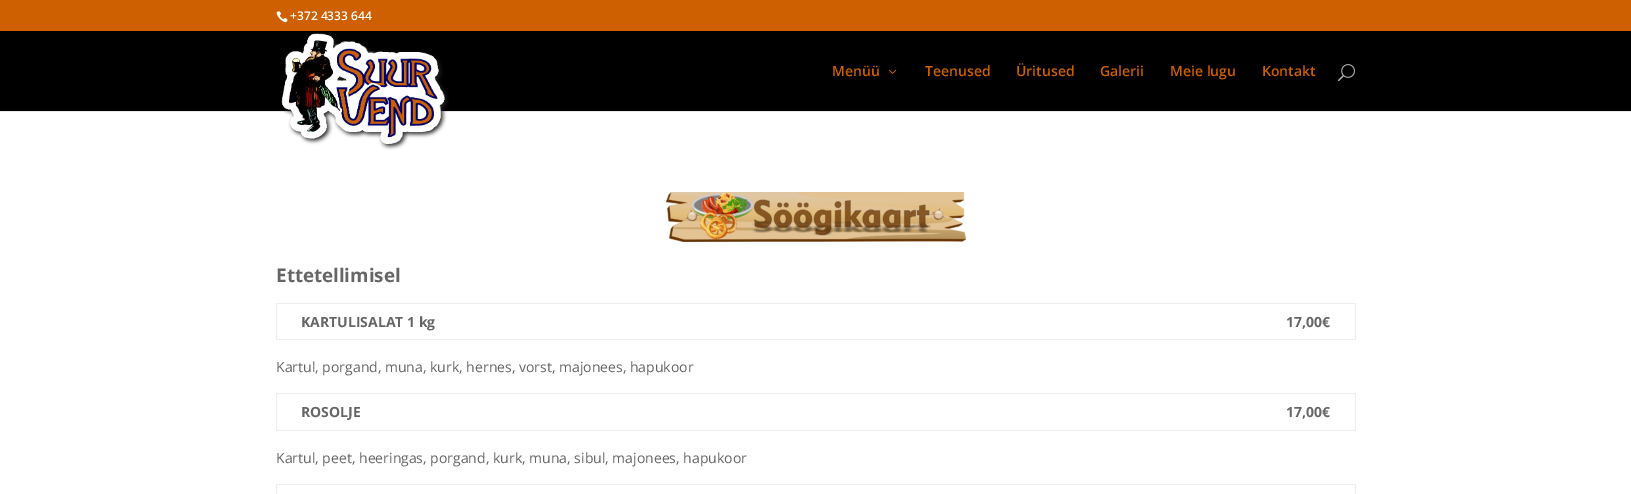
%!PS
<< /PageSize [1631 494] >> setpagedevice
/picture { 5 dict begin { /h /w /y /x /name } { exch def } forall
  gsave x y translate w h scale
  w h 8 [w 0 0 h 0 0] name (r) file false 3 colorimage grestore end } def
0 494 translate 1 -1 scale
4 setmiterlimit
1 setgray
0 0 1631 494 rectfill
0.808 0.376 0.004 setrgbcolor
0 0 1631 31 rectfill
(img1.rgb) 276 11 12 12 picture
/OpenSans-SemiBold [12 0 0 -12 0 0] selectfont
1 setgray
290 20 moveto (+372 4333 644) show
0.902 setgray
0 111 1631 1 rectfill
0 setgray
0 31 1631 80 rectfill
(img2.rgb) 281 33 168 117 picture
/OpenSans-SemiBold [14 0 0 -14 0 0] selectfont
0.808 0.376 0.004 setrgbcolor
832 76 moveto (Menüü) show
(img3.rgb) 888 69 9 5 picture
925 76 moveto (Teenused) show
1016 76 moveto (Üritused) show
1100 76 moveto (Galerii) show
1170 76 moveto (Meie lugu) show
1262 76 moveto (Kontakt) show
(img4.rgb) 1338 64 17 18 picture
(img5.rgb) 666 192 300 50 picture
/OpenSans-Bold [18.75 0 0 -18.75 0 0] selectfont
0.4 setgray
276 282 moveto (Ettetellimisel) show
0.933 setgray
276 303 1080 1 rectfill
1355 303 1 37 rectfill
276 339 1080 1 rectfill
276 303 1 37 rectfill
/OpenSans-Bold [14 0 0 -14 0 0] selectfont
0.4 setgray
301 327 moveto (KARTULISALAT 1 kg) show
1286 327 moveto (17,00€) show
/OpenSans-Regular [14 0 0 -14 0 0] selectfont
276 372 moveto (Kartul, porgand, muna, kurk, hernes, vorst, majonees, hapukoor) show
0.933 setgray
276 393 1080 1 rectfill
1355 393 1 38 rectfill
276 430 1080 1 rectfill
276 393 1 38 rectfill
/OpenSans-Bold [14 0 0 -14 0 0] selectfont
0.4 setgray
301 417 moveto (ROSOLJE) show
1286 417 moveto (17,00€) show
/OpenSans-Regular [14 0 0 -14 0 0] selectfont
276 463 moveto (Kartul, peet, heeringas, porgand, kurk, muna, sibul, majonees, hapukoor) show
0.933 setgray
276 484 1080 1 rectfill
1355 484 1 10 rectfill
276 484 1 10 rectfill
showpage
